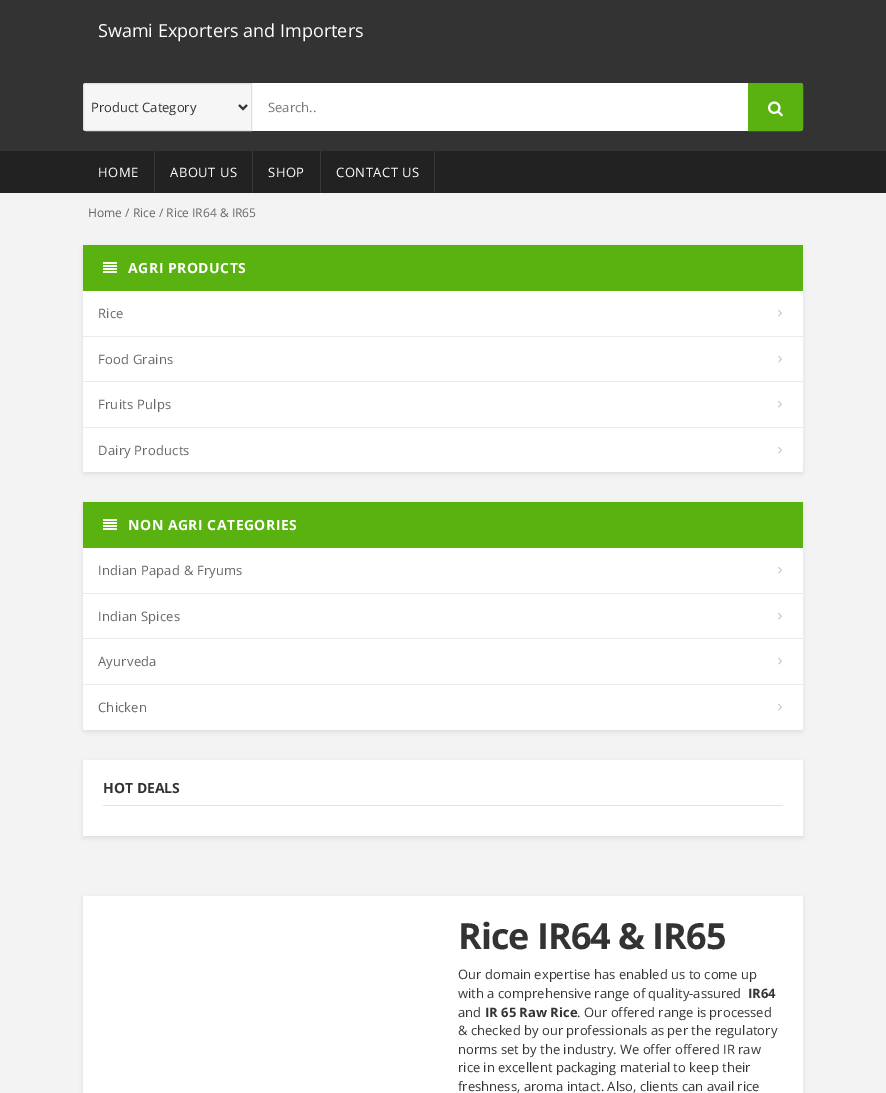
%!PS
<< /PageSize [886 1093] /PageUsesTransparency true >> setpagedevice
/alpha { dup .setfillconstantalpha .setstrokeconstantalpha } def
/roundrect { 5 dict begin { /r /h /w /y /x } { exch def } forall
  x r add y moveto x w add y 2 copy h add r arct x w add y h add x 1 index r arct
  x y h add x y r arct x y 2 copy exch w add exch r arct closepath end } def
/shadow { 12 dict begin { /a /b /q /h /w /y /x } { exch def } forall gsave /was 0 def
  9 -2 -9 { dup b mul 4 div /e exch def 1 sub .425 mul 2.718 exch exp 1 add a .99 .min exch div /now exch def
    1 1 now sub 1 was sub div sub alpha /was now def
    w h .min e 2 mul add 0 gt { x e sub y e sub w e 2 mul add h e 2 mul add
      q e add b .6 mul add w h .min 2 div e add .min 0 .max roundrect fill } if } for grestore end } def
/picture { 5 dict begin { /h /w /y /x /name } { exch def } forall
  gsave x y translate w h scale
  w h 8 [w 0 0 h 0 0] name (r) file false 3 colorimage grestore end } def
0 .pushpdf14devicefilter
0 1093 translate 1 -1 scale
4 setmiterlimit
0.953 setgray
0 0 886 1093 rectfill
0.2 setgray
0 0 886 151 rectfill
/OpenSans-Regular [18 0 0 -18 0 0] selectfont
1 setgray
98 37 moveto (Swami Exporters and Importers) show
83 83 720 48 3 roundrect fill
0.965 setgray
newpath 86 83.5 moveto 251.5 83.5 lineto 251.5 130.5 lineto 86 130.5 lineto 84.5 130.5 83.5 129.5 83.5 128 curveto 83.5 86 lineto 83.5 84.5 84.5 83.5 86 83.5 curveto closepath gsave fill grestore
0.878 setgray
stroke
0.2 setgray
2 setlinewidth
newpath 239 105 moveto 243 109 lineto 247 105 lineto stroke
/OpenSans-Regular [13 0 0 -13 0 0] selectfont
91 112 moveto (Product Category) show
0.459 setgray
268 112 moveto (Search..) show
0.349 0.698 0.063 setrgbcolor
newpath 748.5 83.5 moveto 800 83.5 lineto 801.5 83.5 802.5 84.5 802.5 86 curveto 802.5 128 lineto 802.5 129.5 801.5 130.5 800 130.5 curveto 748.5 130.5 lineto closepath gsave fill grestore
1 setlinewidth
stroke
(img1.rgb) 768 101 15 16 picture
0.133 setgray
0 151 886 42 rectfill
0.22 setgray
154 151 1 42 rectfill
1 setgray
98 177 moveto 0.5 0 (HOME) ashow
0.22 setgray
252 151 1 42 rectfill
1 setgray
170 177 moveto 0.5 0 (ABOUT US) ashow
0.22 setgray
320 151 1 42 rectfill
1 setgray
268 177 moveto 0.5 0 (SHOP) ashow
0.22 setgray
434 151 1 42 rectfill
1 setgray
336 177 moveto 0.5 0 (CONTACT US) ashow
/OpenSans-Regular [12 0 0 -12 0 0] selectfont
0.4 setgray
88 217 moveto (Home / Rice / Rice IR64 & IR65) show
0 setgray
83 247 720 227 2 2 0.08 shadow
1 setgray
83 245 720 227 2 roundrect fill
0.349 0.698 0.063 setrgbcolor
83 245 720 46 rectfill
(img2.rgb) 103 262 14 11 picture
/OpenSans-Bold [14 0 0 -14 0 0] selectfont
1 setgray
128 273 moveto 0.5 0 (AGRI PRODUCTS) ashow
0.918 setgray
83 336 720 1 rectfill
/OpenSans-Regular [13 0 0 -13 0 0] selectfont
0.4 setgray
98 318 moveto 0.2 0 (Rice) ashow
(img3.rgb) 778 309 4 8 picture
0.918 setgray
83 381 720 1 rectfill
0.4 setgray
98 364 moveto 0.2 0 (Food Grains) ashow
(img3.rgb) 778 355 4 8 picture
0.918 setgray
83 427 720 1 rectfill
0.4 setgray
98 409 moveto 0.2 0 (Fruits Pulps) ashow
(img3.rgb) 778 400 4 8 picture
98 455 moveto 0.2 0 (Dairy Products) ashow
(img3.rgb) 778 446 4 8 picture
0 setgray
83 504 720 228 2 2 0.08 shadow
1 setgray
83 502 720 228 2 roundrect fill
0.349 0.698 0.063 setrgbcolor
83 502 720 46 rectfill
(img2.rgb) 103 519 14 11 picture
/OpenSans-Bold [14 0 0 -14 0 0] selectfont
1 setgray
128 530 moveto 0.5 0 (NON AGRI CATEGORIES) ashow
0.918 setgray
83 593 720 1 rectfill
/OpenSans-Regular [13 0 0 -13 0 0] selectfont
0.4 setgray
98 575 moveto 0.2 0 (Indian Papad & Fryums) ashow
(img3.rgb) 778 566 4 8 picture
0.918 setgray
83 638 720 1 rectfill
0.4 setgray
98 621 moveto 0.2 0 (Indian Spices) ashow
(img3.rgb) 778 612 4 8 picture
0.918 setgray
83 684 720 1 rectfill
0.4 setgray
98 666 moveto 0.2 0 (Ayurveda) ashow
(img3.rgb) 778 657 4 8 picture
98 712 moveto 0.2 0 (Chicken) ashow
(img3.rgb) 778 703 4 8 picture
0 setgray
83 762 720 76 0 2 0.08 shadow
1 setgray
83 760 720 76 rectfill
0.89 setgray
103 805 680 1 rectfill
/OpenSans-Bold [14 0 0 -14 0 0] selectfont
0.2 setgray
103 793 moveto (HOT DEALS) show
0 setgray
83 898 720 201 0 2 0.08 shadow
1 setgray
83 896 720 197 rectfill
/OpenSans-Bold [36 0 0 -36 0 0] selectfont
0.2 setgray
458 949 moveto -1 0 (Rice IR64 & IR65) ashow
/OpenSans-Regular [13 0 0 -13 0 0] selectfont
458 979 moveto (Our domain expertise has enabled us to come up) show
458 998 moveto (with a comprehensive range of quality-assured) show
/OpenSans-Bold [13 0 0 -13 0 0] selectfont
748 998 moveto (IR64) show
/OpenSans-Regular [13 0 0 -13 0 0] selectfont
458 1017 moveto (and) show
/OpenSans-Bold [13 0 0 -13 0 0] selectfont
485 1017 moveto (IR 65 Raw Rice) show
/OpenSans-Regular [13 0 0 -13 0 0] selectfont
577 1017 moveto (. Our offered range is processed) show
458 1035 moveto (& checked by our professionals as per the regulatory) show
458 1054 moveto (norms set by the industry. We offer offered IR raw) show
458 1072 moveto (rice in excellent packaging material to keep their) show
458 1091 moveto (freshness, aroma intact. Also, clients can avail rice) show
.poppdf14devicefilter showpage
